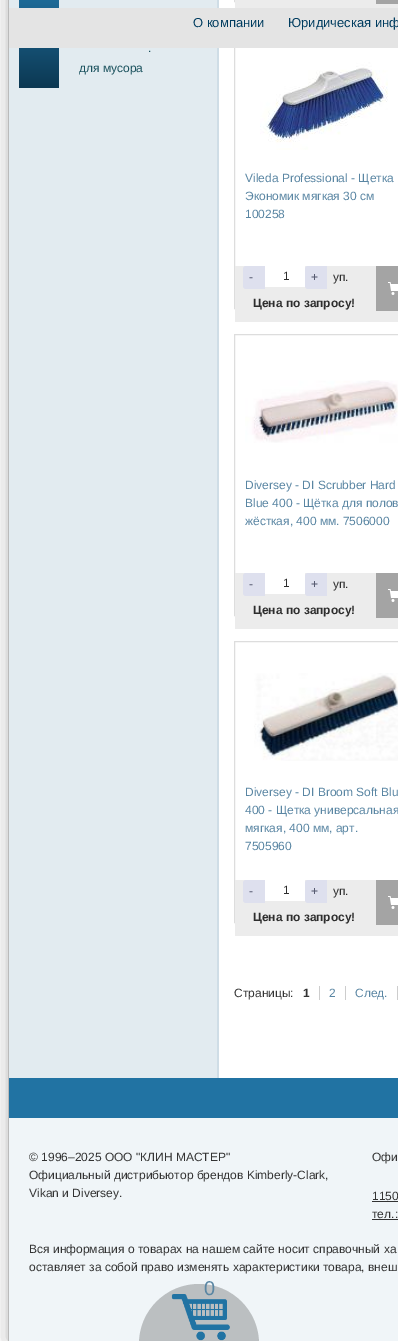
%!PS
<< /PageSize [398 1341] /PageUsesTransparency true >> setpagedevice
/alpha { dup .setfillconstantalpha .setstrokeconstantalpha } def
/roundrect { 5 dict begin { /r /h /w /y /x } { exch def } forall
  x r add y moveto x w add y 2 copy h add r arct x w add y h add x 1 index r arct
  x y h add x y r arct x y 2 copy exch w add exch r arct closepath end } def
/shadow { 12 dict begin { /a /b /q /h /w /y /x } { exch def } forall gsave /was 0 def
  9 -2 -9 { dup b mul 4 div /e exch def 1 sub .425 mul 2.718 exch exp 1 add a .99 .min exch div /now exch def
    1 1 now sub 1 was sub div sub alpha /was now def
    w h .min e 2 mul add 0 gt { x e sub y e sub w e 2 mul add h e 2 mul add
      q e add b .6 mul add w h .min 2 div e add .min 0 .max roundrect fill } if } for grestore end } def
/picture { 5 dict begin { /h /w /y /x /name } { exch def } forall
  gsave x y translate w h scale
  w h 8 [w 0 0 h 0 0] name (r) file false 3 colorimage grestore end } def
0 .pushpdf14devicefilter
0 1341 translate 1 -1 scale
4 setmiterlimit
1 setgray
0 0 398 1341 rectfill
gsave
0 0 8 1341 rectclip
0.733 setgray
8 -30 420 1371 0 10 1 shadow
grestore
0.729 setgray
8 0 1 1341 rectfill
0.886 0.922 0.941 setrgbcolor
9 0 208 1078 rectfill
gsave newpath 19 0 moveto 59 0 lineto 59 88 lineto 19 88 lineto closepath clip newpath
<< /ShadingType 2 /ColorSpace /DeviceRGB /Coords [39 -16 39 88] /Extend [true true] /Function << /FunctionType 2 /Domain [0 1] /C0 [0.129 0.451 0.639] /C1 [0.047 0.22 0.322] /N 1 >> >> shfill grestore
0.812 0.867 0.902 setrgbcolor
217 0 2 1078 rectfill
0.867 setgray
234.5 27.5 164 281 rectstroke
0.894 setgray
9 8 389 40 rectfill
/LiberationSans-Regular [13 0 0 -13 0 0] selectfont
0 0.235 0.373 setrgbcolor
193 27 moveto (О компании) show
288 27 moveto (Юридическая инф) show
/LiberationSans-Regular [12 0 0 -12 0 0] selectfont
0.102 0.318 0.365 setrgbcolor
148 52 moveto (.) show
79 72 moveto (для мусора) show
0.867 setgray
234.5 -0.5 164 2 rectstroke
0.925 setgray
235 0 163 8 rectfill
0.643 setgray
376 0 22 4 rectfill
(img1.rgb) 260 62 128 88 picture
0.353 0.525 0.639 setrgbcolor
245 182 moveto (Vileda Professional - Щетка) show
245 200 moveto (Экономик мягкая 30 см) show
245 218 moveto (100258) show
0.925 setgray
235 266 163 56 rectfill
0.871 0.878 0.933 setrgbcolor
newpath 246 266 moveto 265 266 lineto 265 289 lineto 246 289 lineto 244.5 289 243 287.5 243 286 curveto 243 269 lineto 243 267.5 244.5 266 246 266 curveto closepath fill
0.341 0.357 0.443 setrgbcolor
249 281 moveto (-) show
1 setgray
265 266 40 21 rectfill
0.176 setgray
283 280 moveto (1) show
0.871 0.878 0.933 setrgbcolor
newpath 308 266 moveto 327 266 lineto 327 289 lineto 308 289 lineto 306.5 289 305 287.5 305 286 curveto 305 269 lineto 305 267.5 306.5 266 308 266 curveto closepath fill
0.341 0.357 0.443 setrgbcolor
311 281 moveto (+) show
0.176 setgray
333 281 moveto (уп.) show
0.643 setgray
376 266 22 45 rectfill
(img2.rgb) 388 282 10 13 picture
/LiberationSans-Bold [12 0 0 -12 0 0] selectfont
0.176 setgray
253 307 moveto (Цена по запросу!) show
0.867 setgray
234.5 334.5 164 281 rectstroke
(img3.rgb) 245 380 153 63 picture
/LiberationSans-Regular [12 0 0 -12 0 0] selectfont
0.353 0.525 0.639 setrgbcolor
245 489 moveto (Diversey - DI Scrubber Hard) show
245 507 moveto (Blue 400 - Щётка для полов) show
245 525 moveto (жёсткая, 400 мм. 7506000) show
0.925 setgray
235 573 163 56 rectfill
0.871 0.878 0.933 setrgbcolor
newpath 246 573 moveto 265 573 lineto 265 596 lineto 246 596 lineto 244.5 596 243 594.5 243 593 curveto 243 576 lineto 243 574.5 244.5 573 246 573 curveto closepath fill
0.341 0.357 0.443 setrgbcolor
249 588 moveto (-) show
1 setgray
265 573 40 21 rectfill
0.176 setgray
283 587 moveto (1) show
0.871 0.878 0.933 setrgbcolor
newpath 308 573 moveto 327 573 lineto 327 596 lineto 308 596 lineto 306.5 596 305 594.5 305 593 curveto 305 576 lineto 305 574.5 306.5 573 308 573 curveto closepath fill
0.341 0.357 0.443 setrgbcolor
311 588 moveto (+) show
0.176 setgray
333 588 moveto (уп.) show
0.643 setgray
376 573 22 45 rectfill
(img2.rgb) 388 589 10 13 picture
/LiberationSans-Bold [12 0 0 -12 0 0] selectfont
0.176 setgray
253 614 moveto (Цена по запросу!) show
0.867 setgray
234.5 641.5 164 281 rectstroke
(img4.rgb) 254 673 144 88 picture
/LiberationSans-Regular [12 0 0 -12 0 0] selectfont
0.353 0.525 0.639 setrgbcolor
245 796 moveto (Diversey - DI Broom Soft Blu) show
245 814 moveto (400 - Щетка универсальная) show
245 832 moveto (мягкая, 400 мм, арт.) show
245 850 moveto (7505960) show
0.925 setgray
235 880 163 56 rectfill
0.871 0.878 0.933 setrgbcolor
newpath 246 880 moveto 265 880 lineto 265 903 lineto 246 903 lineto 244.5 903 243 901.5 243 900 curveto 243 883 lineto 243 881.5 244.5 880 246 880 curveto closepath fill
0.341 0.357 0.443 setrgbcolor
249 895 moveto (-) show
1 setgray
265 880 40 21 rectfill
0.176 setgray
283 894 moveto (1) show
0.871 0.878 0.933 setrgbcolor
newpath 308 880 moveto 327 880 lineto 327 903 lineto 308 903 lineto 306.5 903 305 901.5 305 900 curveto 305 883 lineto 305 881.5 306.5 880 308 880 curveto closepath fill
0.341 0.357 0.443 setrgbcolor
311 895 moveto (+) show
0.176 setgray
333 895 moveto (уп.) show
0.643 setgray
376 880 22 45 rectfill
(img2.rgb) 388 896 10 13 picture
/LiberationSans-Bold [12 0 0 -12 0 0] selectfont
0.176 setgray
253 921 moveto (Цена по запросу!) show
/LiberationSans-Regular [12 0 0 -12 0 0] selectfont
0.2 setgray
234 997 moveto (Страницы:) show
/LiberationSans-Bold [12 0 0 -12 0 0] selectfont
303 997 moveto (1) show
/LiberationSans-Regular [12 0 0 -12 0 0] selectfont
0.353 0.525 0.639 setrgbcolor
329 997 moveto (2) show
0.804 setgray
319 986 1 14 rectfill
0.353 0.525 0.639 setrgbcolor
355 997 moveto (След.) show
0.804 setgray
345 986 1 14 rectfill
397 986 1 14 rectfill
0.941 0.961 0.973 setrgbcolor
9 1118 389 223 rectfill
0.129 0.451 0.639 setrgbcolor
9 1078 389 40 rectfill
0.2 setgray
29 1161 moveto (© 1996–2025 ООО "КЛИН МАСТЕР") show
29 1179 moveto (Официальный дистрибьютор брендов Kimberly-Clark,) show
29 1197 moveto (Vikan и Diversey.) show
372 1161 moveto (Офи) show
372 1200 moveto (1150) show
372 1201 26 1 rectfill
372 1218 moveto (тел.:) show
372 1219 26 1 rectfill
29 1253 moveto (Вся информация о товарах на нашем сайте носит справочный ха) show
29 1271 moveto (оставляет за собой право изменять характеристики товара, внеш) show
0.733 0.749 0.757 setrgbcolor
139 1284 120 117 60 roundrect fill
(img5.rgb) 171 1294 59 47 picture
/LiberationSans-Regular [20 0 0 -20 0 0] selectfont
0.353 0.525 0.639 setrgbcolor
204 1295 moveto (0) show
.poppdf14devicefilter showpage
